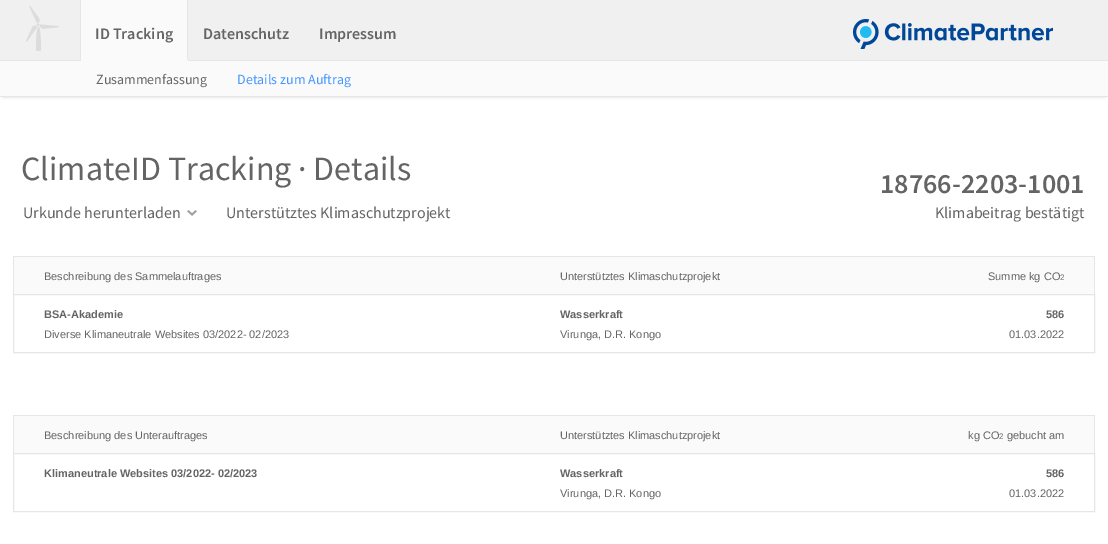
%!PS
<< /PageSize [1108 544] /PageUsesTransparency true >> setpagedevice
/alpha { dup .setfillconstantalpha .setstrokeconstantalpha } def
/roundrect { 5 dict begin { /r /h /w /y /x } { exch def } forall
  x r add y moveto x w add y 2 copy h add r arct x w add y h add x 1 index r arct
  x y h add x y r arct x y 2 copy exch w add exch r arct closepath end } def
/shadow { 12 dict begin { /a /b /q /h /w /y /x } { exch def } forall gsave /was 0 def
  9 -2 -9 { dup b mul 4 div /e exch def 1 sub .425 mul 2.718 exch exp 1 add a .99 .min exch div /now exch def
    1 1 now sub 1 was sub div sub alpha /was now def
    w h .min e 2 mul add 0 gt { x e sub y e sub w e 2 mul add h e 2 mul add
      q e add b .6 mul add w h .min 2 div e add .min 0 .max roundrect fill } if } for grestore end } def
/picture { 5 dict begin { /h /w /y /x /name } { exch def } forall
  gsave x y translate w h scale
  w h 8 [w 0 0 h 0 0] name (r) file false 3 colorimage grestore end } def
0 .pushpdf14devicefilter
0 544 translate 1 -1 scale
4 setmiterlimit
1 setgray
0 0 1108 544 rectfill
0.941 setgray
0 0 1108 60 rectfill
0.902 setgray
0 60 1108 1 rectfill
(img1.rgb) 26 6 33 45 picture
0.98 setgray
81 0 106 60 rectfill
0.902 setgray
187 0 1 61 rectfill
0.98 setgray
80 60 108 1 rectfill
0.902 setgray
80 0 1 61 rectfill
/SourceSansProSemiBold-SemiBold [16 0 0 -16 0 0] selectfont
0.392 setgray
95 39 moveto (ID Tracking) show
203 39 moveto (Datenschutz) show
319 39 moveto (Impressum) show
(img2.rgb) 853 19 200 30 picture
0 setgray
3 67 1102 30 0 1.5 0.15 shadow
0.98 setgray
0 61 1108 35 rectfill
0.902 setgray
0 96 1108 1 rectfill
/SourceSansPro-Regular [14 0 0 -14 0 0] selectfont
0.392 setgray
96 84 moveto (Zusammenfassung) show
0.275 0.588 1 setrgbcolor
237 84 moveto (Details zum Auftrag) show
/SourceSansPro-Regular [34 0 0 -34 0 0] selectfont
0.392 setgray
21 180 moveto (ClimateID Tracking · Details) show
/SourceSansPro-Regular [16 0 0 -16 0 0] selectfont
23 218 moveto (Urkunde herunterladen) show
(img3.rgb) 187 210 10 6 picture
226 218 moveto (Unterstütztes Klimaschutzprojekt) show
/SourceSansProSemiBold-SemiBold [28 0 0 -28 0 0] selectfont
880 193 moveto (18766-2203-1001) show
/SourceSansPro-Regular [16 0 0 -16 0 0] selectfont
935 218 moveto (Klimabeitrag bestätigt) show
0.98 setgray
14 257 1080 37 rectfill
0.902 setgray
13 256 1082 1 rectfill
1094 257 1 37 rectfill
13 257 1 37 rectfill
/LiberationSans-Regular [11 0 0 -11 0 0] selectfont
0.392 setgray
44 280 moveto (Beschreibung des Sammelauftrages) show
560 280 moveto (Unterstütztes Klimaschutzprojekt) show
988 280 moveto (Summe kg CO) show
/LiberationSans-Regular [8 0 0 -8 0 0] selectfont
1060 280 moveto (2) show
0.902 setgray
13.5 294.5 1081 58 rectstroke
/LiberationSans-Bold [11 0 0 -11 0 0] selectfont
0.392 setgray
44 318 moveto (BSA-Akademie) show
/LiberationSans-Regular [11 0 0 -11 0 0] selectfont
44 338 moveto (Diverse Klimaneutrale Websites 03/2022- 02/2023) show
/LiberationSans-Bold [11 0 0 -11 0 0] selectfont
560 318 moveto (Wasserkraft) show
/LiberationSans-Regular [11 0 0 -11 0 0] selectfont
560 338 moveto (Virunga, D.R. Kongo) show
/LiberationSans-Bold [11 0 0 -11 0 0] selectfont
1046 318 moveto (586) show
/LiberationSans-Regular [11 0 0 -11 0 0] selectfont
1009 338 moveto (01.03.2022) show
0.98 setgray
14 416 1080 37 rectfill
0.902 setgray
13 415 1082 1 rectfill
1094 416 1 37 rectfill
13 416 1 37 rectfill
0.392 setgray
44 439 moveto (Beschreibung des Unterauftrages) show
560 439 moveto (Unterstütztes Klimaschutzprojekt) show
968 439 moveto (kg CO) show
/LiberationSans-Regular [8 0 0 -8 0 0] selectfont
999 439 moveto (2) show
/LiberationSans-Regular [11 0 0 -11 0 0] selectfont
1007 439 moveto (gebucht am) show
0.902 setgray
13.5 453.5 1081 58 rectstroke
/LiberationSans-Bold [11 0 0 -11 0 0] selectfont
0.392 setgray
44 477 moveto (Klimaneutrale Websites 03/2022- 02/2023) show
560 477 moveto (Wasserkraft) show
/LiberationSans-Regular [11 0 0 -11 0 0] selectfont
560 497 moveto (Virunga, D.R. Kongo) show
/LiberationSans-Bold [11 0 0 -11 0 0] selectfont
1046 477 moveto (586) show
/LiberationSans-Regular [11 0 0 -11 0 0] selectfont
1009 497 moveto (01.03.2022) show
.poppdf14devicefilter showpage
